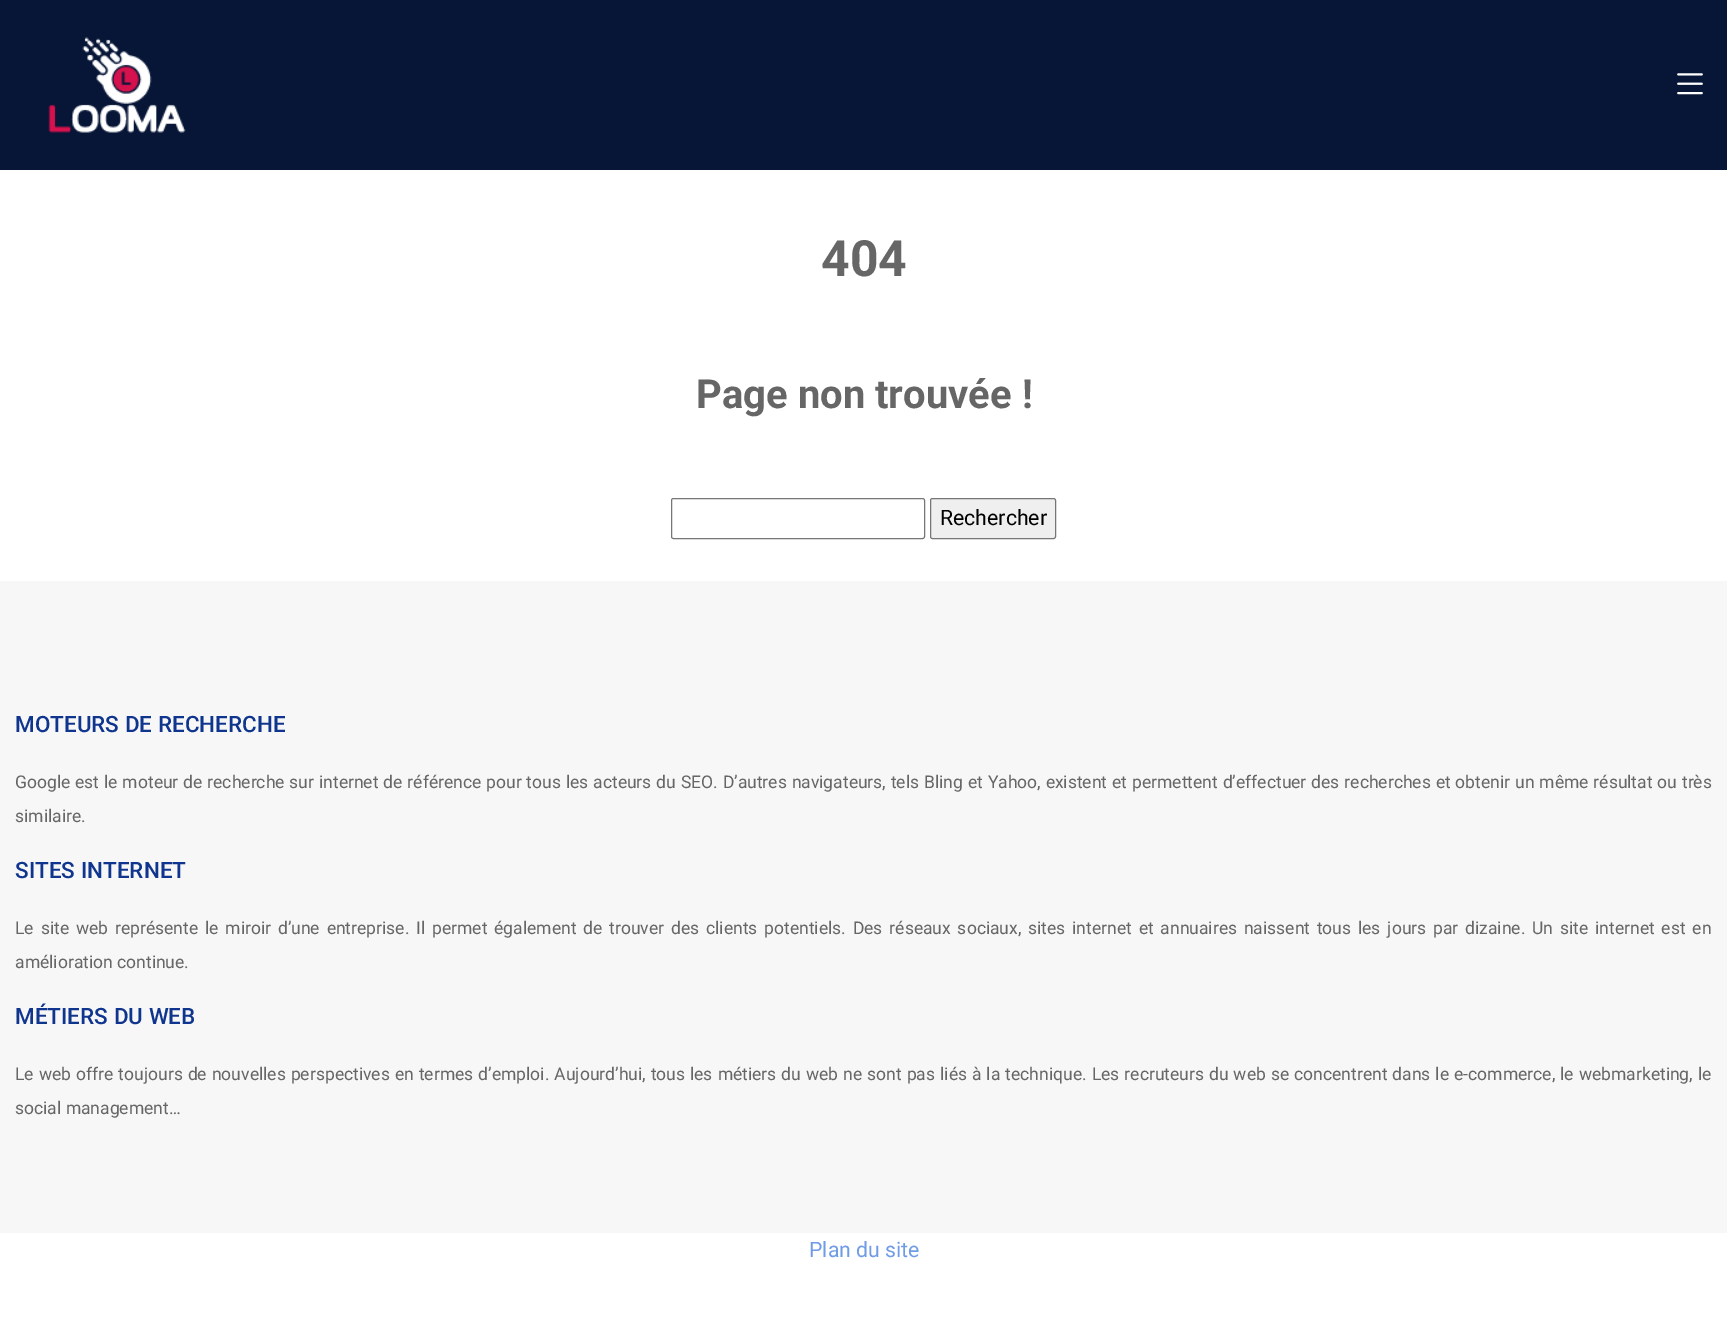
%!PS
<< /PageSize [1727 1340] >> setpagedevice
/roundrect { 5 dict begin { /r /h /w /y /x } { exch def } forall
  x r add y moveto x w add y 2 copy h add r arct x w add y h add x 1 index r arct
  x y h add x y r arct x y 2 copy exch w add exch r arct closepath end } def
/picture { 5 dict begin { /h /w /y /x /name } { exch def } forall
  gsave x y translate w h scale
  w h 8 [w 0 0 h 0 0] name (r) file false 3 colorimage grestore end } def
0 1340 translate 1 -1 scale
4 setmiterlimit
1 setgray
0 0 1727 1340 rectfill
0.027 0.086 0.216 setrgbcolor
0 0 1727 170 rectfill
(img1.rgb) 48 37 138 96 picture
(img2.rgb) 1677 73 26 22 picture
/Roboto-Bold [50 0 0 -50 0 0] selectfont
0.4 setgray
821 276 moveto (404) show
/Roboto-Bold [40 0 0 -40 0 0] selectfont
696 408 moveto (Page non trouvée !) show
0.463 setgray
671.5 498.5 253 40 2 roundrect stroke
0.937 setgray
930.5 498.5 125 40 2 roundrect gsave fill grestore
0.463 setgray
stroke
/Roboto-Regular [21.25 0 0 -21.25 0 0] selectfont
0 setgray
940 525 moveto (Rechercher) show
0.969 setgray
0 581 1727 652 rectfill
/Roboto-Medium [22.5 0 0 -22.5 0 0] selectfont
0.059 0.208 0.557 setrgbcolor
15 732 moveto (MOTEURS DE RECHERCHE) show
/Roboto-Regular [17.5 0 0 -17.5 0 0] selectfont
0.4 setgray
15 788 moveto 0.55 0 32 (Google est le moteur de recherche sur internet de référence pour tous les acteurs du SEO. D’autres navigateurs, tels Bling et Yahoo, existent et permettent d’effectuer des recherches et obtenir un même résultat ou très) widthshow
15 822 moveto (similaire.) show
/Roboto-Medium [22.5 0 0 -22.5 0 0] selectfont
0.059 0.208 0.557 setrgbcolor
15 878 moveto (SITES INTERNET) show
/Roboto-Regular [17.5 0 0 -17.5 0 0] selectfont
0.4 setgray
15 934 moveto 2.5 0 32 (Le site web représente le miroir d’une entreprise. Il permet également de trouver des clients potentiels. Des réseaux sociaux, sites internet et annuaires naissent tous les jours par dizaine. Un site internet est en) widthshow
15 968 moveto (amélioration continue.) show
/Roboto-Medium [22.5 0 0 -22.5 0 0] selectfont
0.059 0.208 0.557 setrgbcolor
15 1024 moveto (MÉTIERS DU WEB) show
/Roboto-Regular [17.5 0 0 -17.5 0 0] selectfont
0.4 setgray
15 1080 moveto 0.7 0 32 (Le web offre toujours de nouvelles perspectives en termes d’emploi. Aujourd’hui, tous les métiers du web ne sont pas liés à la technique. Les recruteurs du web se concentrent dans le e-commerce, le webmarketing, le) widthshow
15 1114 moveto (social management…) show
/Roboto-Regular [21.25 0 0 -21.25 0 0] selectfont
0.439 0.608 0.906 setrgbcolor
809 1257 moveto (Plan du site) show
showpage
